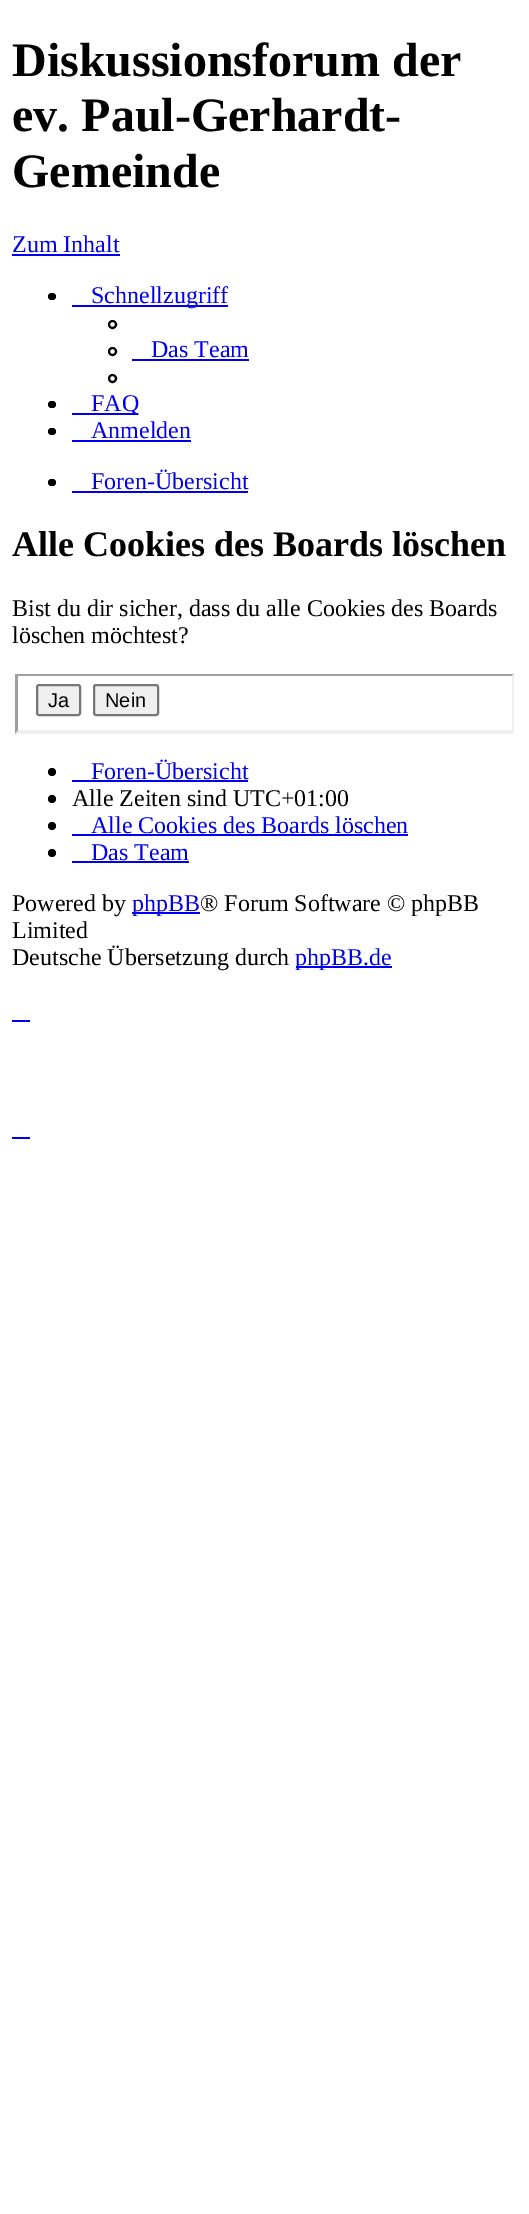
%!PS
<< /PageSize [529 2214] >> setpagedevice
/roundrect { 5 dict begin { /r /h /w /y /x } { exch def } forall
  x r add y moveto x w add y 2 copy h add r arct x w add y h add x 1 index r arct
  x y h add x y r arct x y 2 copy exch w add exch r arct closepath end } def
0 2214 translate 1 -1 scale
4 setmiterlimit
1 setgray
0 0 529 2214 rectfill
/LiberationSerif-Bold [48 0 0 -48 0 0] selectfont
0 setgray
12 76 moveto (Diskussionsforum der) show
12 131 moveto (ev. Paul-Gerhardt-) show
12 187 moveto (Gemeinde) show
/LiberationSerif-Regular [24 0 0 -24 0 0] selectfont
0 0 0.933 setrgbcolor
12 252 moveto (Zum Inhalt) show
12 254 108 2 rectfill
0 setgray
48 293 8 7 3.5 roundrect fill
0 0 0.933 setrgbcolor
72 305 156 2 rectfill
91 303 moveto (Schnellzugriff) show
0 setgray
2 setlinewidth
newpath 112.5 324.5 3.5 0 360 arc closepath stroke
newpath 112.5 351.5 3.5 0 360 arc closepath stroke
0 0 0.933 setrgbcolor
151 357 moveto (Das Team) show
132 359 117 2 rectfill
0 setgray
newpath 112.5 378.5 3.5 0 360 arc closepath stroke
48 401 8 7 3.5 roundrect fill
0 0 0.933 setrgbcolor
72 413 66 2 rectfill
91 411 moveto (FAQ) show
0 setgray
48 428 8 7 3.5 roundrect fill
0 0 0.933 setrgbcolor
91 438 moveto (Anmelden) show
72 440 119 2 rectfill
0 setgray
48 479 8 7 3.5 roundrect fill
0 0 0.933 setrgbcolor
91 489 moveto (Foren-Übersicht) show
72 491 176 2 rectfill
/LiberationSerif-Bold [36 0 0 -36 0 0] selectfont
0 setgray
12 556 moveto (Alle Cookies des Boards löschen) show
/LiberationSerif-Regular [24 0 0 -24 0 0] selectfont
12 616 moveto (Bist du dir sicher, dass du alle Cookies des Boards) show
12 643 moveto (löschen möchtest?) show
0.624 setgray
newpath 15 674 moveto 514 674 lineto 512 676 lineto 18 676 lineto closepath fill
0.937 setgray
newpath 514 674 moveto 514 734 lineto 512 730 lineto 512 676 lineto closepath fill
newpath 514 734 moveto 15 734 lineto 18 730 lineto 512 730 lineto closepath fill
0.624 setgray
newpath 15 734 moveto 15 674 lineto 18 676 lineto 18 730 lineto closepath fill
0.937 setgray
37 685 43 30 2 roundrect gsave fill grestore
0.463 setgray
stroke
/LiberationSans-Regular [20 0 0 -20 0 0] selectfont
0 setgray
48 707 moveto (Ja) show
0.937 setgray
94 685 64 30 2 roundrect gsave fill grestore
0.463 setgray
stroke
0 setgray
105 707 moveto (Nein) show
newpath 52 772 4 0 360 arc closepath fill
/LiberationSerif-Regular [24 0 0 -24 0 0] selectfont
0 0 0.933 setrgbcolor
91 779 moveto (Foren-Übersicht) show
72 780 176 2 rectfill
0 setgray
newpath 52 799 4 0 360 arc closepath fill
72 806 moveto (Alle Zeiten sind UTC+01:00) show
newpath 52 826 4 0 360 arc closepath fill
0 0 0.933 setrgbcolor
91 833 moveto (Alle Cookies des Boards löschen) show
72 834 336 2 rectfill
0 setgray
newpath 52 853 4 0 360 arc closepath fill
0 0 0.933 setrgbcolor
91 860 moveto (Das Team) show
72 861 117 2 rectfill
0 setgray
12 911 moveto (Powered by) show
0 0 0.933 setrgbcolor
132 912 68 2 rectfill
132 911 moveto (phpBB) show
0 setgray
200 911 moveto (® Forum Software © phpBB) show
12 938 moveto (Limited) show
12 965 moveto (Deutsche Übersetzung durch) show
0 0 0.933 setrgbcolor
296 966 96 2 rectfill
295 965 moveto (phpBB.de) show
12 1020 18 2 rectfill
12 1137 18 2 rectfill
showpage
